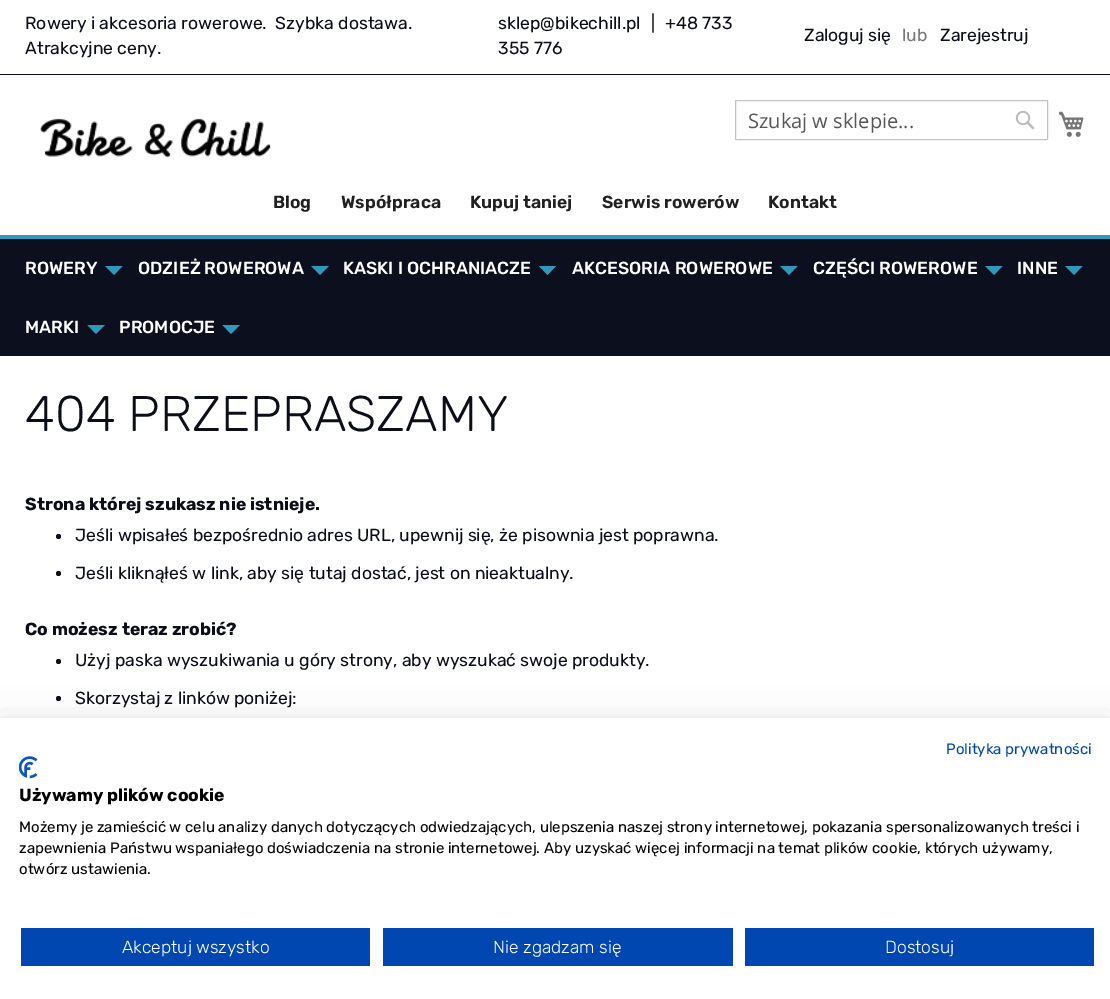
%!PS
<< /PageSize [1110 999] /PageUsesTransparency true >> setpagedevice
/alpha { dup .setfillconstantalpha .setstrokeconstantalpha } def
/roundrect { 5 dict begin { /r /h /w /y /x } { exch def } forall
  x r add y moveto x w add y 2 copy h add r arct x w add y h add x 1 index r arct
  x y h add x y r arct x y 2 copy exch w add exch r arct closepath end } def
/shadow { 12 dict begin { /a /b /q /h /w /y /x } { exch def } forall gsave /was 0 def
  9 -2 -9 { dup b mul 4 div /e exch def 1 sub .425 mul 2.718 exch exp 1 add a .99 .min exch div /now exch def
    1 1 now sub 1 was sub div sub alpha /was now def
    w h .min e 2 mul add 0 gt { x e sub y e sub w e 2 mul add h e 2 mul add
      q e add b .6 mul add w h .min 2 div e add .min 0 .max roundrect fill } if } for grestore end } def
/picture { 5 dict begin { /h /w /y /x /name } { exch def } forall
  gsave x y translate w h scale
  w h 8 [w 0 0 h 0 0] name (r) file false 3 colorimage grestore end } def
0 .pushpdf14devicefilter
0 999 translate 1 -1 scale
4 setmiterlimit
1 setgray
0 0 1110 999 rectfill
0.055 0.051 0.122 setrgbcolor
0 74 1110 1 rectfill
/Rubik-Regular [17.5 0 0 -17.5 0 0] selectfont
0.043 0.051 0.098 setrgbcolor
25 29 moveto (Rowery i akcesoria rowerowe.  Szybka dostawa.) show
25 54 moveto (Atrakcyjne ceny.) show
498 29 moveto (sklep@bikechill.pl) show
651 29 moveto (|) show
665 29 moveto (+48 733) show
498 54 moveto (355 776) show
804 41 moveto (Zaloguj się) show
0.471 setgray
902 41 moveto (lub) show
0.043 0.051 0.098 setrgbcolor
940 41 moveto (Zarejestruj) show
(img1.rgb) 40 118 231 40 picture
0.761 setgray
735.5 100.5 312 39 0.5 roundrect stroke
/OpenSans-Regular [20 0 0 -20 0 0] selectfont
0.341 setgray
748 128 moveto (Szukaj w sklepie...) show
(img2.rgb) 1015 110 20 20 picture
(img3.rgb) 1058 111 26 26 picture
/Rubik-SemiBold [17.5 0 0 -17.5 0 0] selectfont
0.125 setgray
273 208 moveto (Blog) show
341 208 moveto (Współpraca) show
470 208 moveto (Kupuj taniej) show
602 208 moveto (Serwis rowerów) show
768 208 moveto (Kontakt) show
0.047 0.059 0.118 setrgbcolor
0 239 1110 117 rectfill
0.188 0.596 0.729 setrgbcolor
0 235 1110 4 rectfill
/Rubik-Medium [17.5 0 0 -17.5 0 0] selectfont
1 setgray
25 274 moveto (ROWERY) show
0.188 0.596 0.729 setrgbcolor
newpath 105 266 moveto 122.5 266 lineto 114 275 lineto closepath fill
1 setgray
138 274 moveto (ODZIEŻ ROWEROWA) show
0.188 0.596 0.729 setrgbcolor
newpath 311 266 moveto 329 266 lineto 320 275 lineto closepath fill
1 setgray
343 274 moveto (KASKI I OCHRANIACZE) show
0.188 0.596 0.729 setrgbcolor
newpath 539 266 moveto 556 266 lineto 547.5 275 lineto closepath fill
1 setgray
572 274 moveto (AKCESORIA ROWEROWE) show
0.188 0.596 0.729 setrgbcolor
newpath 780 266 moveto 797.5 266 lineto 789 275 lineto closepath fill
1 setgray
813 274 moveto (CZĘŚCI ROWEROWE) show
0.188 0.596 0.729 setrgbcolor
newpath 985 266 moveto 1002.5 266 lineto 994 275 lineto closepath fill
1 setgray
1017 274 moveto (INNE) show
0.188 0.596 0.729 setrgbcolor
newpath 1065 266 moveto 1082.5 266 lineto 1074 275 lineto closepath fill
1 setgray
25 333 moveto (MARKI) show
0.188 0.596 0.729 setrgbcolor
newpath 87.5 325 moveto 105 325 lineto 96 334 lineto closepath fill
1 setgray
119 333 moveto (PROMOCJE) show
0.188 0.596 0.729 setrgbcolor
newpath 222.5 325 moveto 240 325 lineto 231 334 lineto closepath fill
/Rubik-Light [50 0 0 -50 0 0] selectfont
0.043 0.051 0.098 setrgbcolor
25 431 moveto (404 PRZEPRASZAMY) show
/Rubik-Bold [17.5 0 0 -17.5 0 0] selectfont
25 510 moveto (Strona której szukasz nie istnieje.) show
0.047 0.059 0.118 setrgbcolor
newpath 58.5 536.5 2.5 0 360 arc closepath fill
/Rubik-Regular [17.5 0 0 -17.5 0 0] selectfont
0.043 0.051 0.098 setrgbcolor
75 541 moveto (Jeśli wpisałeś bezpośrednio adres URL, upewnij się, że pisownia jest poprawna.) show
0.047 0.059 0.118 setrgbcolor
newpath 58.5 573.5 2.5 0 360 arc closepath fill
0.043 0.051 0.098 setrgbcolor
75 579 moveto (Jeśli kliknąłeś w link, aby się tutaj dostać, jest on nieaktualny.) show
/Rubik-Bold [17.5 0 0 -17.5 0 0] selectfont
25 635 moveto (Co możesz teraz zrobić?) show
0.047 0.059 0.118 setrgbcolor
newpath 58.5 661.5 2.5 0 360 arc closepath fill
/Rubik-Regular [17.5 0 0 -17.5 0 0] selectfont
0.043 0.051 0.098 setrgbcolor
75 666 moveto (Użyj paska wyszukiwania u góry strony, aby wyszukać swoje produkty.) show
0.047 0.059 0.118 setrgbcolor
newpath 58.5 698.5 2.5 0 360 arc closepath fill
0.043 0.051 0.098 setrgbcolor
75 704 moveto (Skorzystaj z linków poniżej:) show
0 setgray
0 718 1110 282 0 15 0.1 shadow
1 setgray
0 718 1110 281 rectfill
/Rubik-Regular [15 0 0 -15 0 0] selectfont
0 0.278 0.698 setrgbcolor
946 754 moveto (Polityka prywatności) show
(img4.rgb) 19 756 19 23 picture
/Rubik-Bold [17.5 0 0 -17.5 0 0] selectfont
0 setgray
19 801 moveto (Używamy plików cookie) show
/Rubik-Regular [15 0 0 -15 0 0] selectfont
19 832 moveto (Możemy je zamieścić w celu analizy danych dotyczących odwiedzających, ulepszenia naszej strony internetowej, pokazania spersonalizowanych treści i) show
19 853 moveto (zapewnienia Państwu wspaniałego doświadczenia na stronie internetowej. Aby uzyskać więcej informacji na temat plików cookie, których używamy,) show
19 874 moveto (otwórz ustawienia.) show
0 0.278 0.698 setrgbcolor
21 928 349 38 rectfill
/Rubik-Light [17.5 0 0 -17.5 0 0] selectfont
1 setgray
122 953 moveto (Akceptuj wszystko) show
0 0.278 0.698 setrgbcolor
383 928 350 38 rectfill
1 setgray
493 953 moveto (Nie zgadzam się) show
0 0.278 0.698 setrgbcolor
745 928 349 38 rectfill
1 setgray
885 953 moveto (Dostosuj) show
.poppdf14devicefilter showpage
